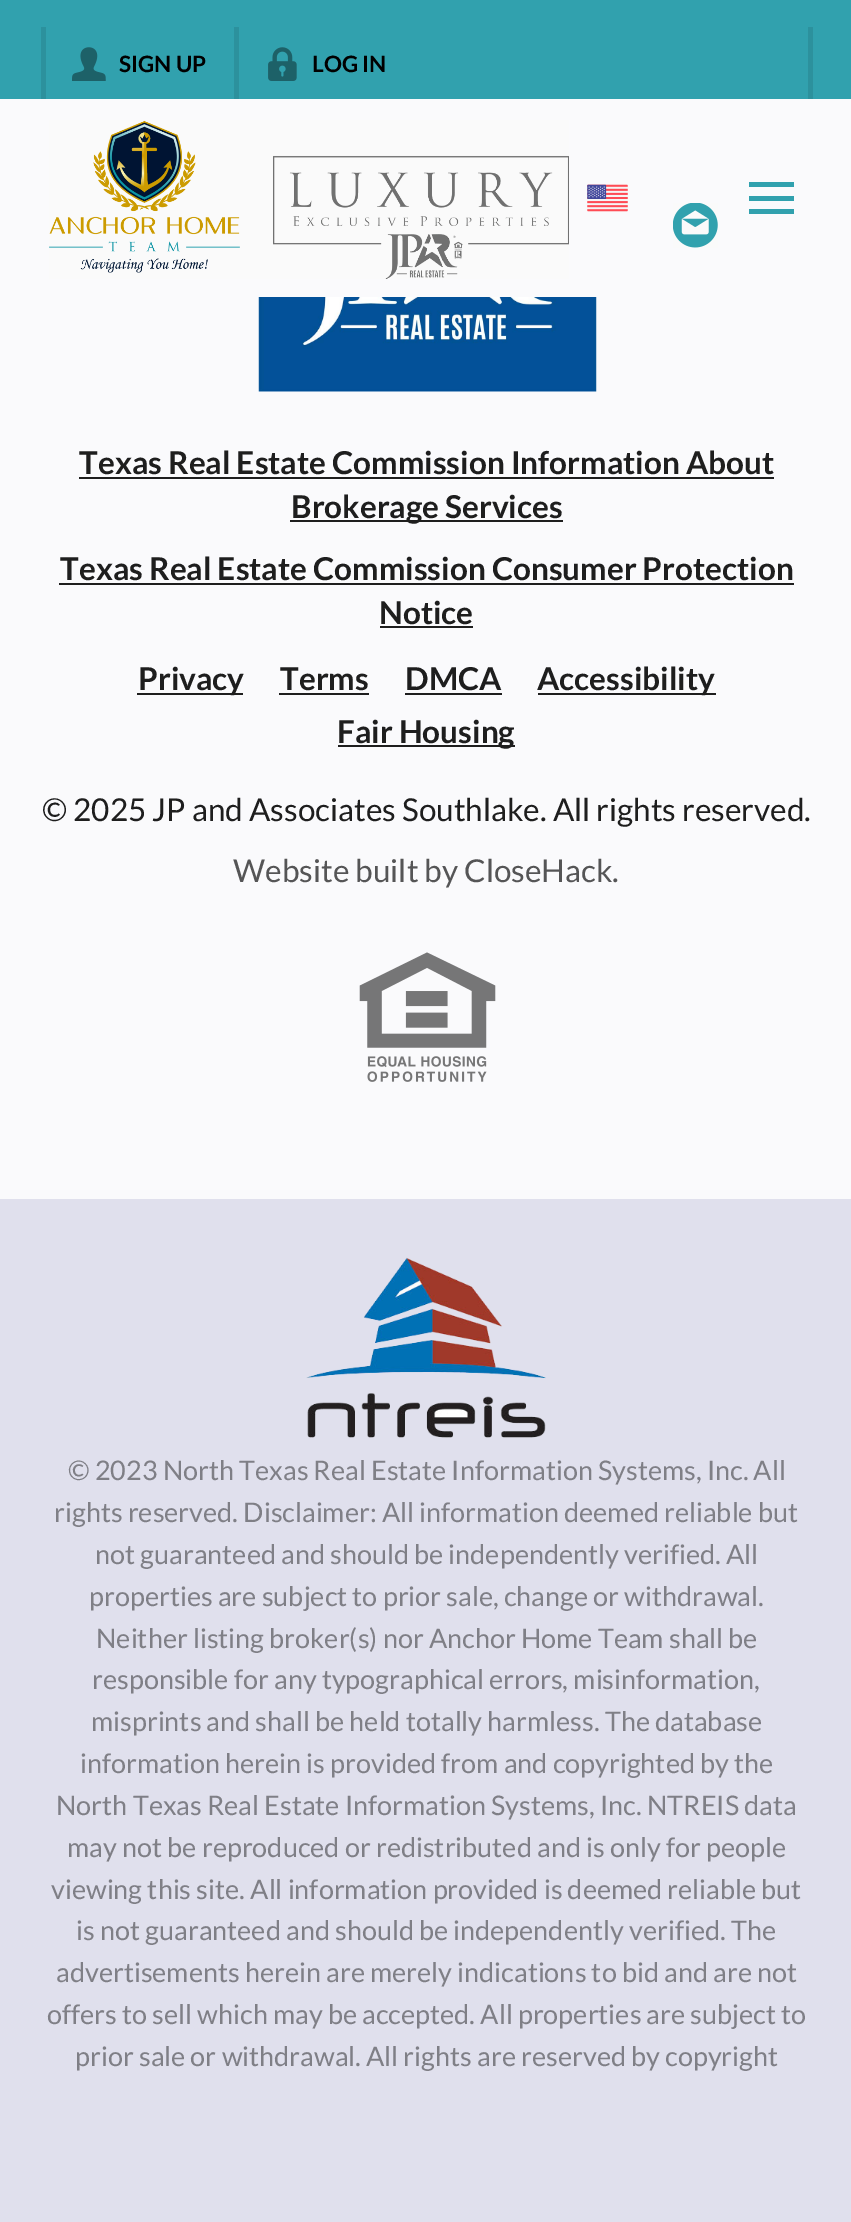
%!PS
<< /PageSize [851 2222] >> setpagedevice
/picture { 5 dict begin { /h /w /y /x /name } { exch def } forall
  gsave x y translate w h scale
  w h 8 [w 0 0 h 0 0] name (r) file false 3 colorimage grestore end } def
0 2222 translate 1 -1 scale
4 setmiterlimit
0.98 0.98 0.988 setrgbcolor
0 0 851 2222 rectfill
0.192 0.631 0.682 setrgbcolor
0 0 851 99 rectfill
0.173 0.569 0.616 setrgbcolor
808 27 5 72 rectfill
41 27 5 72 rectfill
(img1.rgb) 72 47 34 34 picture
/Lato-Bold [22.5 0 0 -22.5 0 0] selectfont
0 setgray
119 72 moveto (SIGN UP) show
0.173 0.569 0.616 setrgbcolor
234 27 5 72 rectfill
(img2.rgb) 268 47 29 34 picture
0 setgray
312 72 moveto (LOG IN) show
(img3.rgb) 49 120 520 159 picture
(img4.rgb) 587 184 41 28 picture
0.192 0.631 0.682 setrgbcolor
749 182 45 5 rectfill
749 196 45 5 rectfill
749 209 45 5 rectfill
(img5.rgb) 673 203 45 45 picture
(img6.rgb) 258 297 339 95 picture
/Lato-Bold [31.5 0 0 -31.5 0 0] selectfont
0.118 setgray
79 474 moveto (Texas Real Estate Commission Information About) show
79 477 695 2 rectfill
290 520 273 2 rectfill
291 518 moveto (Brokerage Services) show
60 580 moveto (Texas Real Estate Commission Consumer Protection) show
59 583 735 2 rectfill
379 624 moveto (Notice) show
380 626 93 2 rectfill
137 693 106 2 rectfill
138 690 moveto (Privacy) show
280 690 moveto (Terms) show
279 693 90 2 rectfill
405 690 moveto (DMCA) show
405 693 97 2 rectfill
538 693 178 2 rectfill
537 690 moveto (Accessibility) show
338 745 177 2 rectfill
337 743 moveto (Fair Housing) show
/Lato-Regular [31.5 0 0 -31.5 0 0] selectfont
42 821 moveto (© 2025 JP and Associates Southlake. All rights reserved.) show
0.333 0.333 0.337 setrgbcolor
233 882 moveto (Website built by CloseHack.) show
(img7.rgb) 359 952 137 130 picture
0.878 0.878 0.929 setrgbcolor
0 1199 851 1023 rectfill
(img8.rgb) 306 1257 240 181 picture
/Lato-Regular [27 0 0 -27 0 0] selectfont
0.498 0.498 0.525 setrgbcolor
68 1480 moveto (© 2023 North Texas Real Estate Information Systems, Inc. All) show
54 1522 moveto (rights reserved. Disclaimer: All information deemed reliable but) show
95 1564 moveto (not guaranteed and should be independently verified. All) show
89 1606 moveto (properties are subject to prior sale, change or withdrawal.) show
96 1648 moveto (Neither listing broker\(s\) nor Anchor Home Team shall be) show
92 1689 moveto (responsible for any typographical errors, misinformation,) show
91 1731 moveto (misprints and shall be held totally harmless. The database) show
80 1773 moveto (information herein is provided from and copyrighted by the) show
56 1815 moveto (North Texas Real Estate Information Systems, Inc. NTREIS data) show
67 1857 moveto (may not be reproduced or redistributed and is only for people) show
51 1899 moveto (viewing this site. All information provided is deemed reliable but) show
76 1940 moveto (is not guaranteed and should be independently verified. The) show
56 1982 moveto (advertisements herein are merely indications to bid and are not) show
47 2024 moveto (offers to sell which may be accepted. All properties are subject to) show
75 2066 moveto (prior sale or withdrawal. All rights are reserved by copyright) show
showpage
